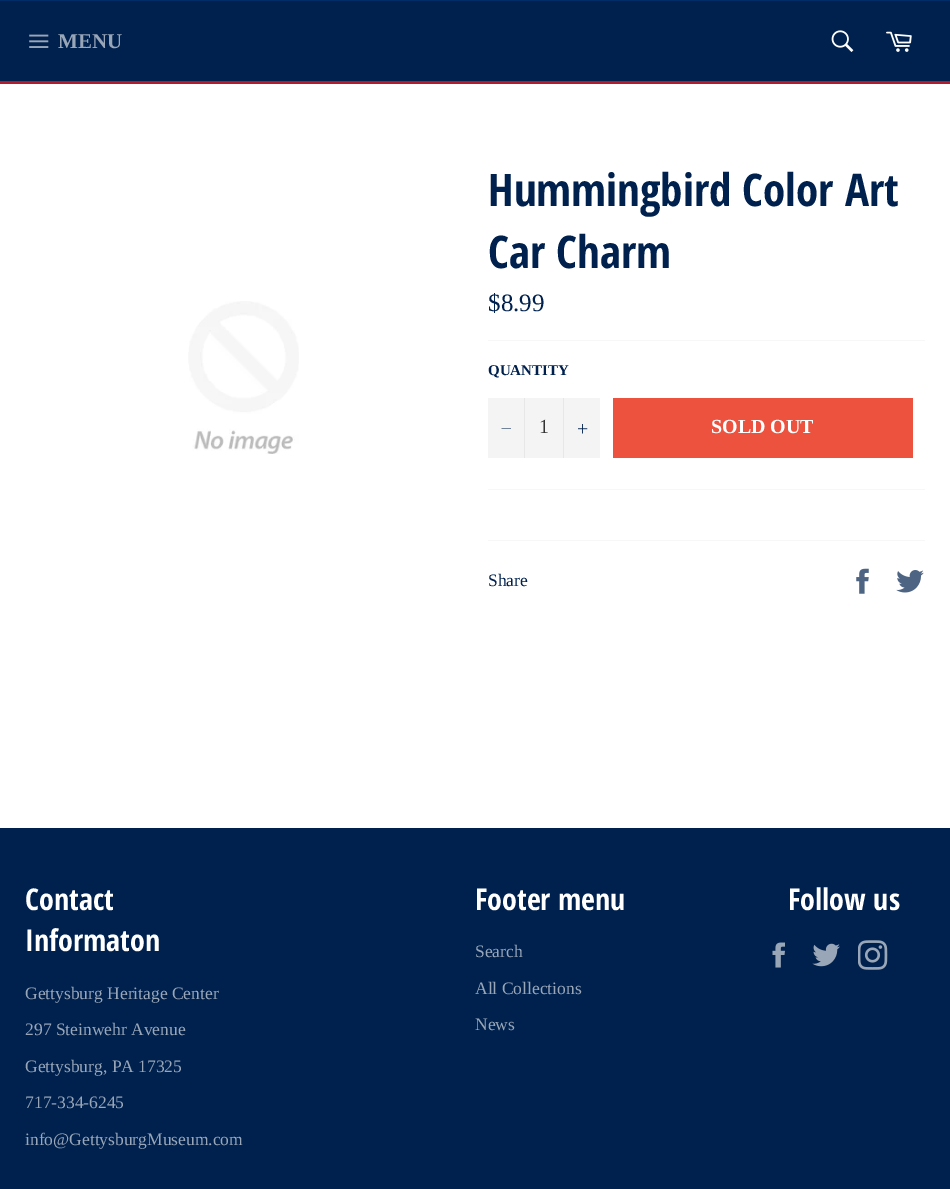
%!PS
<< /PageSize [950 1189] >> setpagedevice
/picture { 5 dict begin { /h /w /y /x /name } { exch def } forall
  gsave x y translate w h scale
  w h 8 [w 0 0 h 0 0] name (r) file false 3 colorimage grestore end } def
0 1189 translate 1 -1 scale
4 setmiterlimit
0.69 0.11 0.18 setrgbcolor
0 0 950 1189 rectfill
0 0.129 0.302 setrgbcolor
0 1 950 80 rectfill
0 0.173 0.404 setrgbcolor
0 0 950 1 rectfill
(img1.rgb) 29 34 20 14 picture
/LiberationSerif-Bold [21 0 0 -21 0 0] selectfont
0.6 0.651 0.722 setrgbcolor
58 48 moveto (MENU) show
(img2.rgb) 831 30 23 22 picture
(img3.rgb) 886 31 26 21 picture
1 setgray
0 84 950 744 rectfill
(img4.rgb) 188 301 111 153 picture
/OpenSansCondensed-Bold [45 0 0 -45 0 0] selectfont
0 0.129 0.302 setrgbcolor
488 206 moveto (Hummingbird Color Art) show
488 268 moveto (Car Charm) show
/LiberationSerif-Regular [25 0 0 -25 0 0] selectfont
488 311 moveto ($8.99) show
0.969 setgray
488 340 437 1 rectfill
/LiberationSerif-Bold [15 0 0 -15 0 0] selectfont
0 0.129 0.302 setrgbcolor
488 375 moveto (QUANTITY) show
0.957 setgray
488 398 112 60 rectfill
0.906 setgray
524 398 1 60 rectfill
0 0.129 0.302 setrgbcolor
newpath 511 428.5 moveto 511 429 lineto 501.5 429 lineto 501.5 428.5 lineto closepath eofill
/LiberationSerif-Regular [20 0 0 -20 0 0] selectfont
0.2 setgray
539 433 moveto (1) show
0.906 setgray
563 398 1 60 rectfill
(img5.rgb) 578 424 10 10 picture
0.925 0.322 0.243 setrgbcolor
613 398 300 60 rectfill
/LiberationSerif-Bold [20 0 0 -20 0 0] selectfont
1 setgray
711 433 moveto (SOLD OUT) show
0.969 setgray
488 489 437 1 rectfill
488 540 437 1 rectfill
/LiberationSerif-Regular [17.5 0 0 -17.5 0 0] selectfont
0 0.129 0.302 setrgbcolor
488 586 moveto (Share) show
(img6.rgb) 856 568 13 26 picture
(img7.rgb) 896 570 28 23 picture
0 828 950 361 rectfill
/OpenSansCondensed-Bold [30 0 0 -30 0 0] selectfont
1 setgray
25 910 moveto (Contact) show
25 951 moveto (Informaton) show
/LiberationSerif-Regular [17.5 0 0 -17.5 0 0] selectfont
0.6 0.651 0.722 setrgbcolor
25 999 moveto (Gettysburg Heritage Center) show
25 1035 moveto (297 Steinwehr Avenue) show
25 1072 moveto (Gettysburg, PA 17325) show
25 1108 moveto (717-334-6245) show
25 1145 moveto (info@GettysburgMuseum.com) show
/OpenSansCondensed-Bold [30 0 0 -30 0 0] selectfont
1 setgray
475 910 moveto (Footer menu) show
/LiberationSerif-Regular [17.5 0 0 -17.5 0 0] selectfont
0.6 0.651 0.722 setrgbcolor
475 957 moveto (Search) show
475 994 moveto (All Collections) show
475 1030 moveto (News) show
/OpenSansCondensed-Bold [30 0 0 -30 0 0] selectfont
1 setgray
788 910 moveto (Follow us) show
(img8.rgb) 772 942 13 26 picture
(img9.rgb) 812 943 28 24 picture
(img10.rgb) 858 940 30 30 picture
showpage
